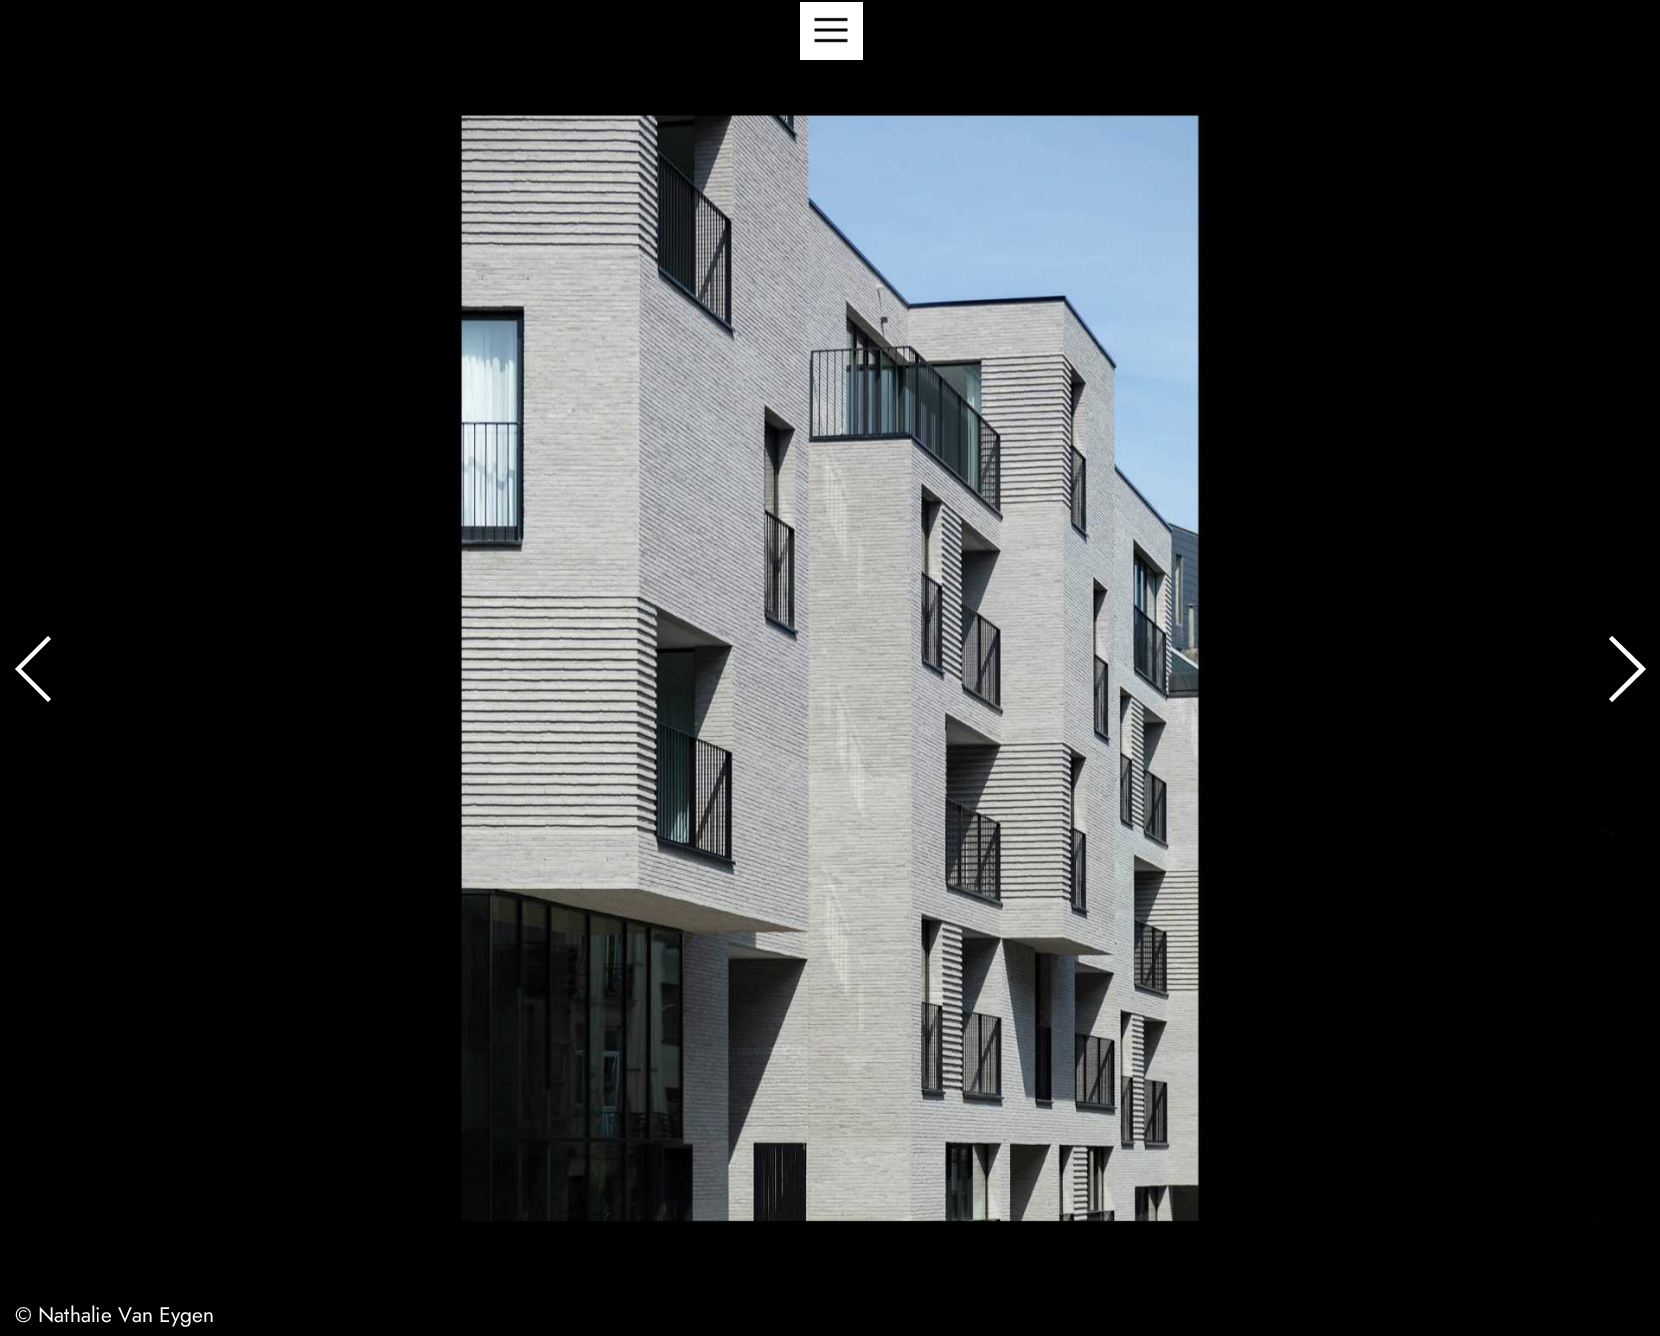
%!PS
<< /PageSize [1660 1336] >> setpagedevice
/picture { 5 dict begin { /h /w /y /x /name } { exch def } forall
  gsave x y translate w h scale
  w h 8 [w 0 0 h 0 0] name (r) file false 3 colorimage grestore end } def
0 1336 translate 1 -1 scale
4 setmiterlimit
0 setgray
0 0 1660 1336 rectfill
1 setgray
800 2 63 58 rectfill
(img1.rgb) 814 17 34 26 picture
newpath 15 669 moveto 48 636 lineto 51 639 lineto 21 669 lineto 51 699 lineto 48 702 lineto closepath fill
(img2.rgb) 457 115 1155 1107 picture
newpath 1646 669 moveto 1612 702 lineto 1609 699 lineto 1639 669 lineto 1609 639 lineto 1612 636 lineto closepath fill
/Jost-Regular [21 0 0 -21 0 0] selectfont
15 1322 moveto (© Nathalie Van Eygen) show
showpage
